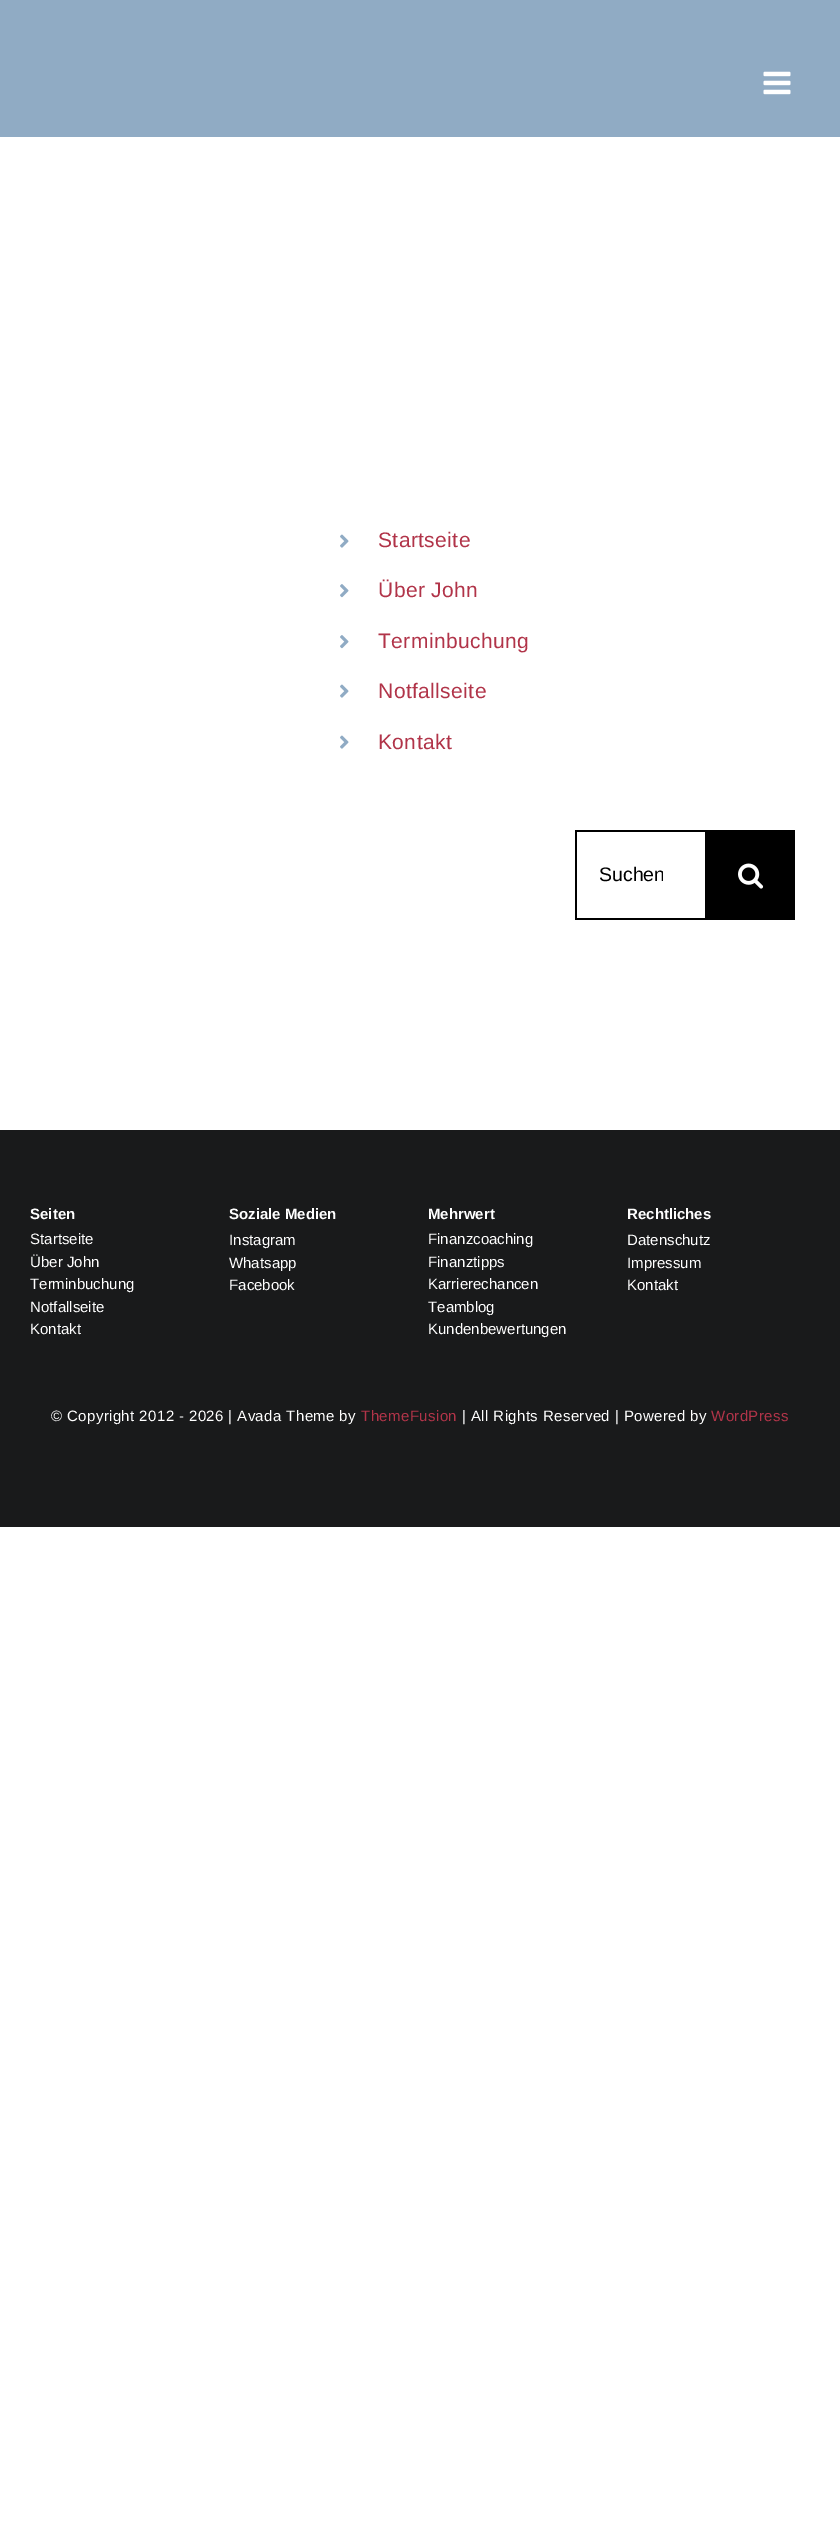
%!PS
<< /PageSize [840 2538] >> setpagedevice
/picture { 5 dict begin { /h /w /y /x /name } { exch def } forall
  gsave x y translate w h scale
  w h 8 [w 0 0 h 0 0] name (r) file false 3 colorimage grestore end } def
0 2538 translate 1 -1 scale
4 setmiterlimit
1 setgray
0 0 840 2538 rectfill
0.565 0.671 0.769 setrgbcolor
0 0 840 137 rectfill
(img1.rgb) 763 71 28 24 picture
(img2.rgb) 340 534 9 14 picture
/LiberationSans-Regular [21 0 0 -21 0 0] selectfont
0.694 0.204 0.286 setrgbcolor
378 547 moveto 0.4 0 (Startseite) ashow
(img3.rgb) 340 584 9 14 picture
378 597 moveto 0.4 0 (Über John) ashow
(img3.rgb) 340 635 9 14 picture
378 648 moveto 0.4 0 (Terminbuchung) ashow
(img2.rgb) 340 684 9 14 picture
378 698 moveto 0.4 0 (Notfallseite) ashow
(img2.rgb) 340 735 9 14 picture
378 749 moveto 0.4 0 (Kontakt) ashow
0 setgray
575 830 130 2 rectfill
575 918 130 2 rectfill
575 830 2 90 rectfill
gsave
599 863 64 22 rectclip
/LiberationSans-Regular [19.5 0 0 -19.5 0 0] selectfont
599 881 moveto (Suchen) show
grestore
705 830 90 90 rectfill
(img4.rgb) 738 863 26 26 picture
0.098 0.102 0.106 setrgbcolor
0 1130 840 397 rectfill
/LiberationSans-Bold [15 0 0 -15 0 0] selectfont
1 setgray
30 1219 moveto (Seiten) show
/LiberationSans-Regular [15 0 0 -15 0 0] selectfont
30 1244 moveto (Startseite) show
30 1267 moveto (Über John) show
30 1289 moveto (Terminbuchung) show
30 1312 moveto (Notfallseite) show
30 1334 moveto (Kontakt) show
/LiberationSans-Bold [15 0 0 -15 0 0] selectfont
229 1219 moveto (Soziale Medien) show
/LiberationSans-Regular [15 0 0 -15 0 0] selectfont
229 1245 moveto (Instagram) show
229 1268 moveto (Whatsapp) show
229 1290 moveto (Facebook) show
/LiberationSans-Bold [15 0 0 -15 0 0] selectfont
428 1219 moveto (Mehrwert) show
/LiberationSans-Regular [15 0 0 -15 0 0] selectfont
428 1244 moveto (Finanzcoaching) show
428 1267 moveto (Finanztipps) show
428 1289 moveto (Karrierechancen) show
428 1312 moveto (Teamblog) show
428 1334 moveto (Kundenbewertungen) show
/LiberationSans-Bold [15 0 0 -15 0 0] selectfont
627 1219 moveto (Rechtliches) show
/LiberationSans-Regular [15 0 0 -15 0 0] selectfont
627 1245 moveto (Datenschutz) show
627 1268 moveto (Impressum) show
627 1290 moveto (Kontakt) show
51 1421 moveto 0.4 0 (© Copyright 2012 - 2026 | Avada Theme by) ashow
0.694 0.204 0.286 setrgbcolor
361 1421 moveto 0.4 0 (ThemeFusion) ashow
1 setgray
462 1421 moveto 0.4 0 (| All Rights Reserved | Powered by) ashow
0.694 0.204 0.286 setrgbcolor
711 1421 moveto 0.4 0 (WordPress) ashow
showpage
